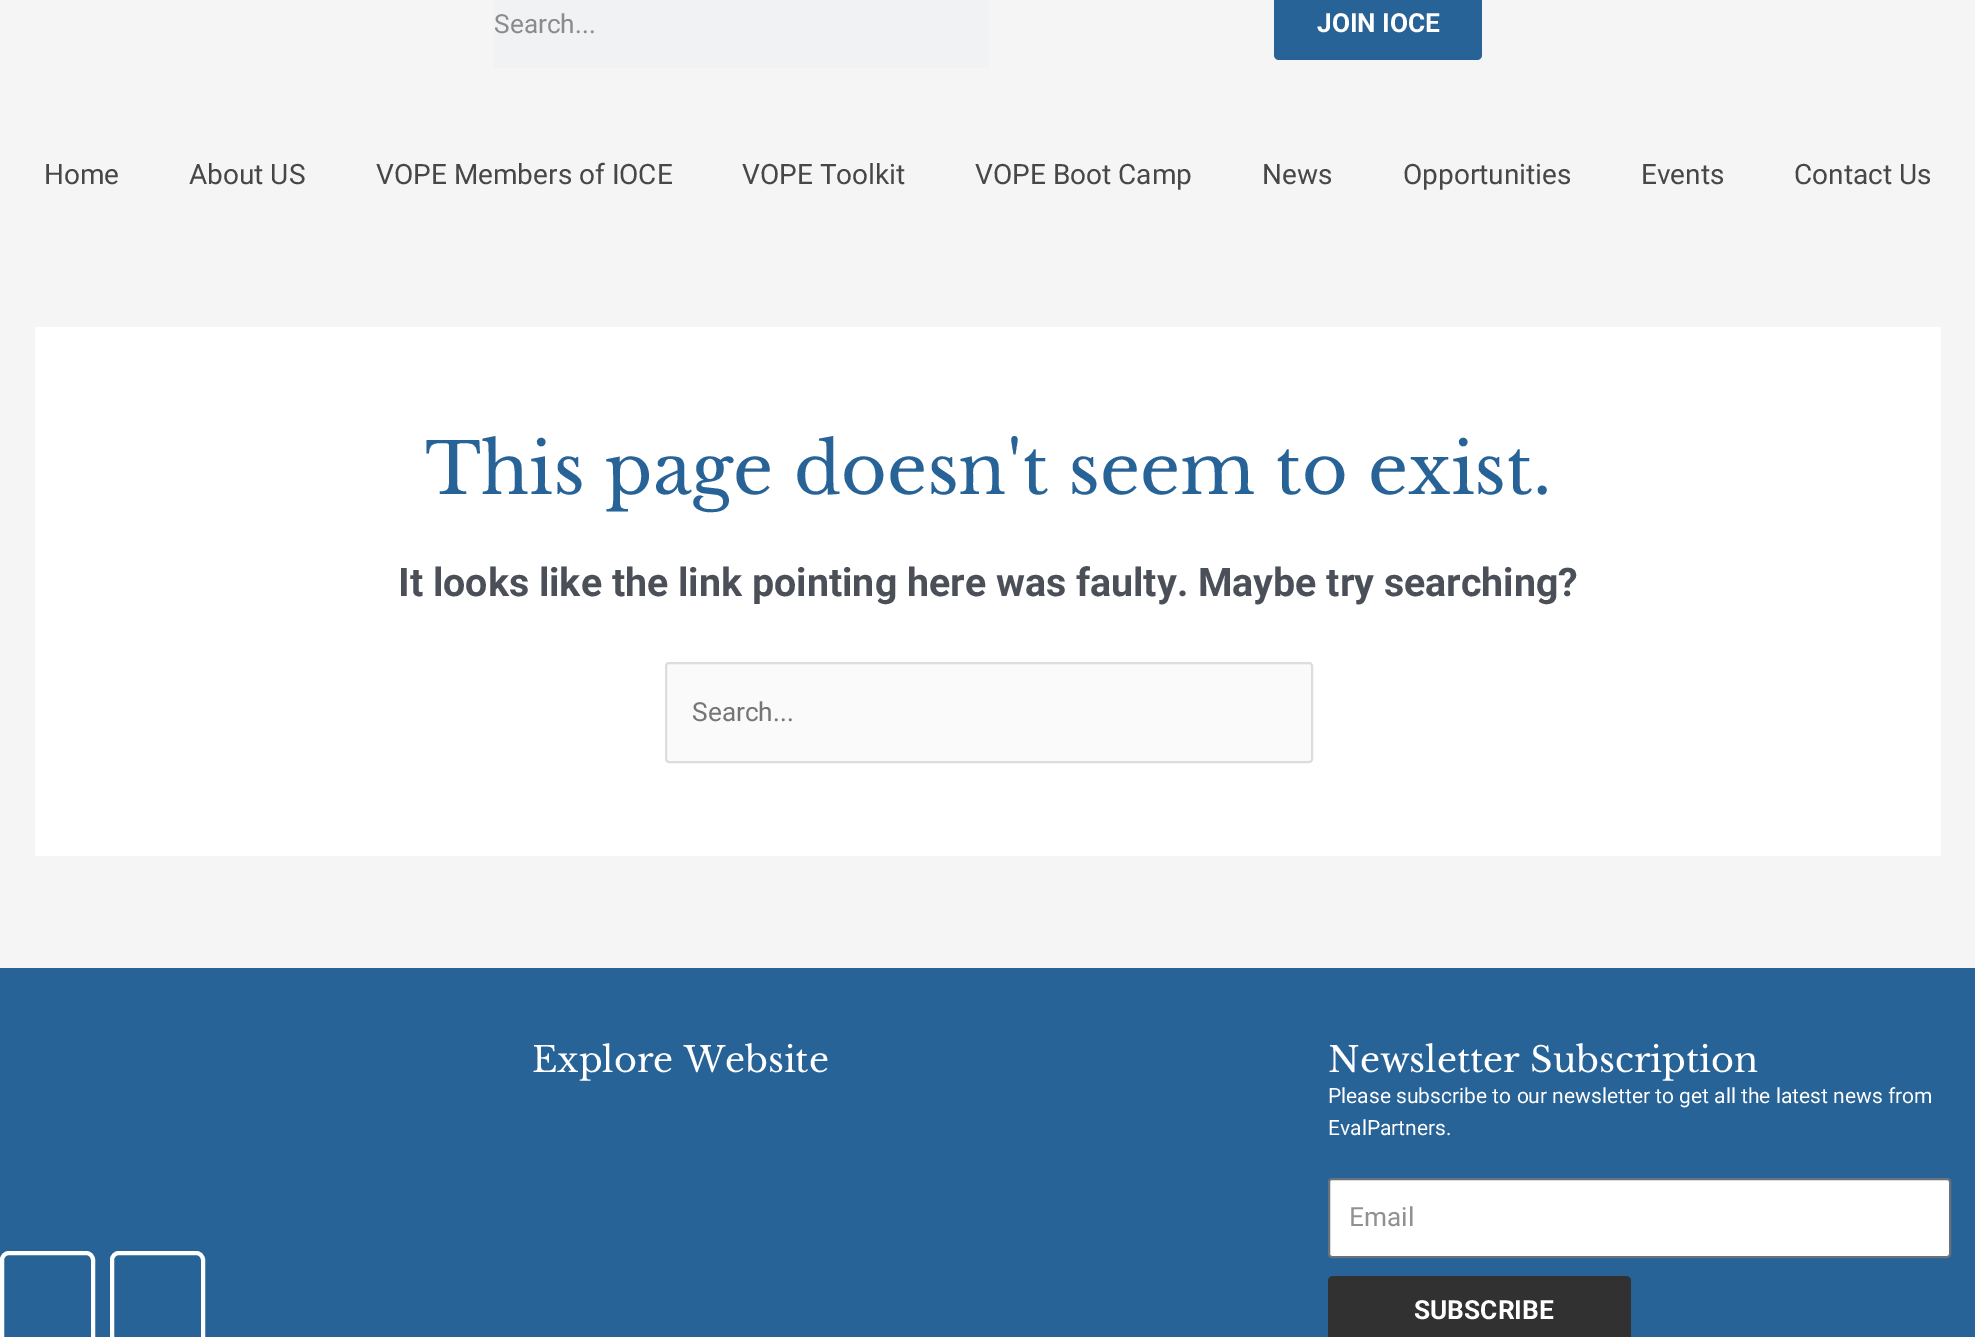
%!PS
<< /PageSize [1975 1337] >> setpagedevice
/roundrect { 5 dict begin { /r /h /w /y /x } { exch def } forall
  x r add y moveto x w add y 2 copy h add r arct x w add y h add x 1 index r arct
  x y h add x y r arct x y 2 copy exch w add exch r arct closepath end } def
0 1337 translate 1 -1 scale
4 setmiterlimit
0.961 setgray
0 0 1975 1337 rectfill
0.945 0.949 0.953 setrgbcolor
494 0 495 68 rectfill
/Roboto-Regular [26.25 0 0 -26.25 0 0] selectfont
0.545 0.545 0.549 setrgbcolor
494 33 moveto (Search...) show
0.153 0.388 0.592 setrgbcolor
1274 -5 208 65 5 roundrect fill
/Roboto-Bold [26.25 0 0 -26.25 0 0] selectfont
1 setgray
1317 32 moveto (JOIN IOCE) show
/Roboto-Regular [28 0 0 -28 0 0] selectfont
0.278 setgray
44 184 moveto (Home) show
189 184 moveto (About US) show
376 184 moveto (VOPE Members of IOCE) show
742 184 moveto (VOPE Toolkit) show
975 184 moveto (VOPE Boot Camp) show
1262 184 moveto (News) show
1403 184 moveto (Opportunities) show
1641 184 moveto (Events) show
1794 184 moveto (Contact Us) show
1 setgray
35 327 1906 529 rectfill
/LibreBaskerville-Regular [70 0 0 -70 0 0] selectfont
0.153 0.388 0.592 setrgbcolor
425 494 moveto (This page doesn't seem to exist.) show
/Roboto-Bold [39.4 0 0 -39.4 0 0] selectfont
0.294 0.31 0.345 setrgbcolor
398 596 moveto (It looks like the link pointing here was faulty. Maybe try searching?) show
0.98 setgray
666 663 646 99 3 roundrect gsave fill grestore
0.867 setgray
2 setlinewidth
stroke
/Roboto-Regular [26.25 0 0 -26.25 0 0] selectfont
0.459 setgray
692 721 moveto (Search...) show
0.153 0.388 0.592 setrgbcolor
0 968 1975 369 rectfill
1 setgray
4 setlinewidth
2 1253 91 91 7 roundrect stroke
112 1253 91 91 7 roundrect stroke
/LibreBaskerville-Regular [35 0 0 -35 0 0] selectfont
532 1072 moveto (Explore Website) show
1328 1072 moveto (Newsletter Subscription) show
/Roboto-Regular [21 0 0 -21 0 0] selectfont
1328 1103 moveto (Please subscribe to our newsletter to get all the latest news from) show
1328 1135 moveto (EvalPartners.) show
1329 1179 621 78 3 roundrect gsave fill grestore
0.412 0.447 0.49 setrgbcolor
2 setlinewidth
stroke
/Roboto-Regular [26.25 0 0 -26.25 0 0] selectfont
0.569 setgray
1349 1226 moveto (Email) show
0.192 setgray
1328 1276 303 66 5 roundrect fill
/Roboto-Bold [26.25 0 0 -26.25 0 0] selectfont
1 setgray
1414 1319 moveto (SUBSCRIBE) show
showpage
